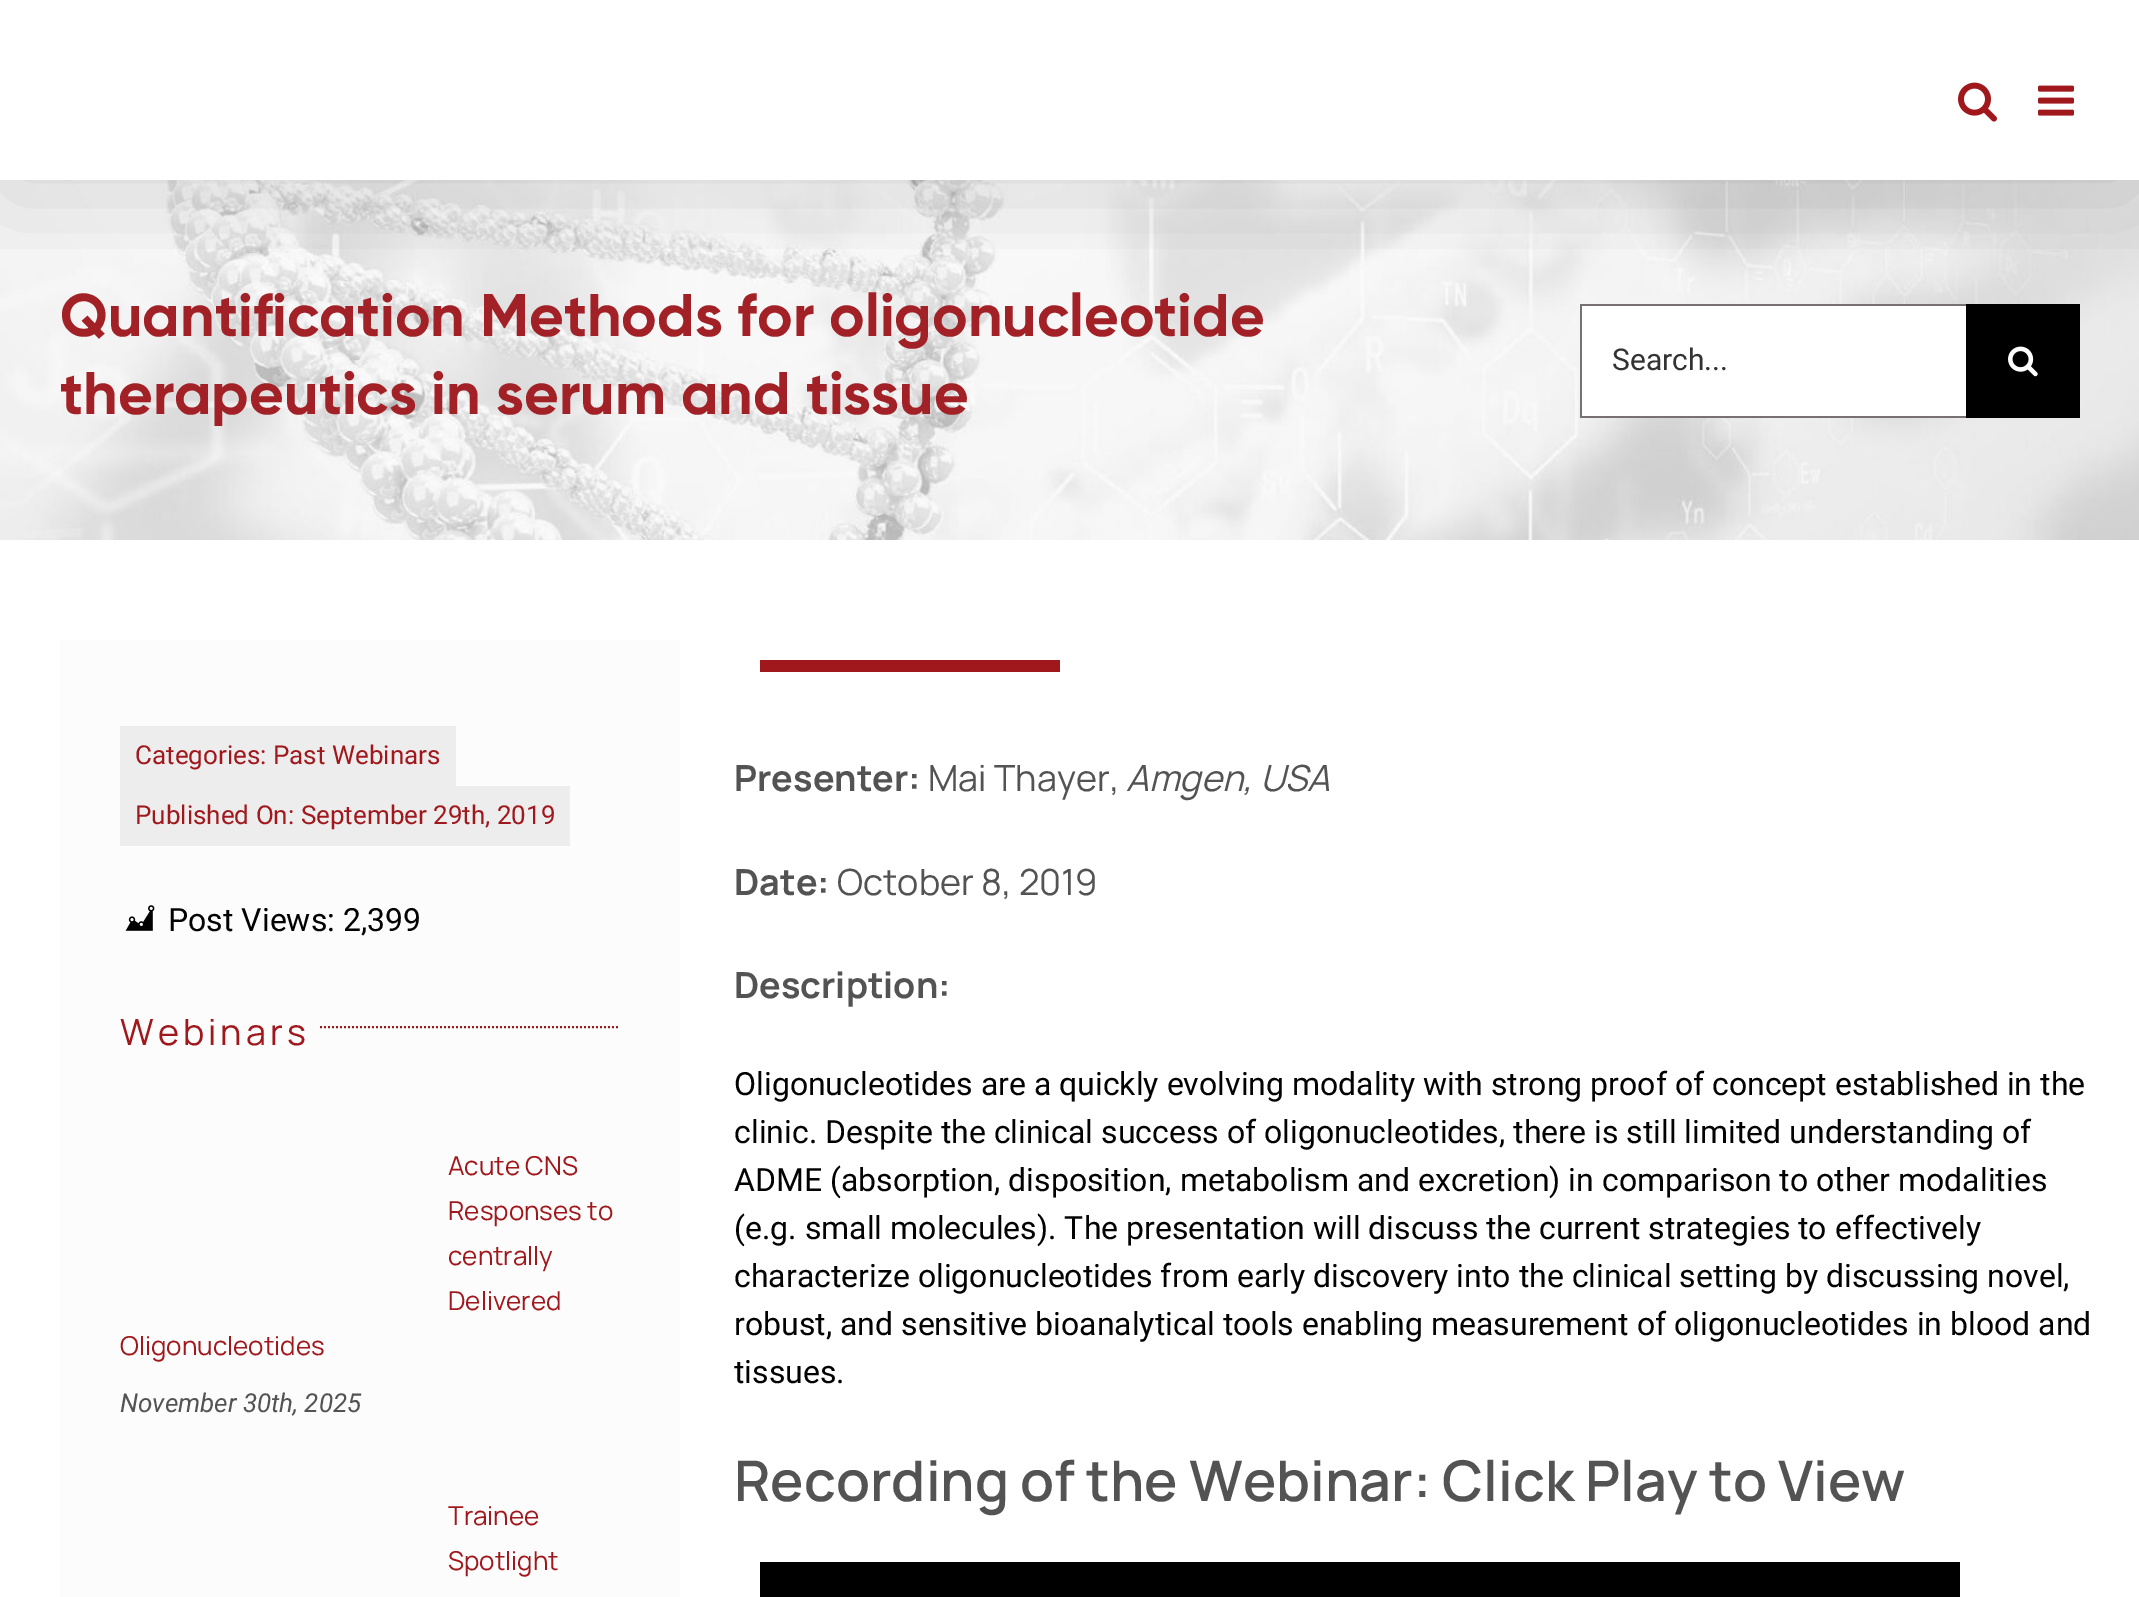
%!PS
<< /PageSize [2139 1597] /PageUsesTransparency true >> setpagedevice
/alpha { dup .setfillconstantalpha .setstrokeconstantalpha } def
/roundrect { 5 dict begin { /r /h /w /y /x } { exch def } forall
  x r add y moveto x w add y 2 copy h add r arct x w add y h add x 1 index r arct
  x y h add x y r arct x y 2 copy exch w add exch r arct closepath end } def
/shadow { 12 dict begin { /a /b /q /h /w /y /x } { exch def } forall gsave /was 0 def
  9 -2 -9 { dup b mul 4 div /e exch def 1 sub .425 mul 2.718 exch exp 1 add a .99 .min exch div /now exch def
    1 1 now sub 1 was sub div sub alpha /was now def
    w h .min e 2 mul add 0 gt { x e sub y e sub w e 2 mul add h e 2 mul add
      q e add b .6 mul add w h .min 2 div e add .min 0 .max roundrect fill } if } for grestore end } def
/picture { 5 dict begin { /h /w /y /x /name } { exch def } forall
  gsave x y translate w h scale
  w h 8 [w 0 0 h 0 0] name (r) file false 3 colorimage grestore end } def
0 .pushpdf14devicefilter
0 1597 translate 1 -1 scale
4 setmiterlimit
1 setgray
0 0 2139 1597 rectfill
(img3.rgb) 0 180 2139 360 picture
1582 306 384 110 rectfill
0.467 0.443 0.443 setrgbcolor
1580 304 386 2 rectfill
1580 416 386 2 rectfill
1580 304 2 114 rectfill
0 setgray
1966 304 114 114 rectfill
(img4.rgb) 2008 346 30 31 picture
gsave
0 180 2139 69 rectclip
4 24 2132 172 0 50 0.14 shadow
grestore
(img1.rgb) 1958 82 39 40 picture
(img2.rgb) 2038 85 36 31 picture
/Gilroy-Bold [60 0 0 -60 0 0] selectfont
0.631 0.129 0.149 setrgbcolor
60 336 moveto (Quantification Methods for oligonucleotide) show
60 414 moveto (therapeutics in serum and tissue) show
/Roboto-Regular [30 0 0 -30 0 0] selectfont
0.2 setgray
1612 370 moveto (Search...) show
0.988 setgray
60 640 620 957 rectfill
0.929 setgray
120 726 336 60 rectfill
/Roboto-Regular [26 0 0 -26 0 0] selectfont
0.627 0.09 0.11 setrgbcolor
135 764 moveto (Categories: Past Webinars) show
0.929 setgray
120 786 450 60 rectfill
0.627 0.09 0.11 setrgbcolor
135 824 moveto (Published On: September 29th, 2019) show
(img5.rgb) 125 905 30 26 picture
/Roboto-Regular [32 0 0 -32 0 0] selectfont
0.008 setgray
168 931 moveto (Post Views: 2,399) show
/Manrope-Regular [36 0 0 -36 0 0] selectfont
0.627 0.09 0.11 setrgbcolor
120 1045 moveto 4 0 (Webinars) ashow
2 setlinewidth
[2 2] 0 setdash
newpath 320 1027 moveto 620 1027 lineto stroke
/Manrope-Regular [26 0 0 -26 0 0] selectfont
448 1175 moveto (Acute CNS) show
448 1220 moveto (Responses to) show
448 1265 moveto (centrally) show
448 1310 moveto (Delivered) show
120 1355 moveto (Oligonucleotides) show
/Roboto-Italic [26 0 0 -26 0 0] selectfont
0.325 setgray
120 1412 moveto (November 30th, 2025) show
/Manrope-Regular [26 0 0 -26 0 0] selectfont
0.627 0.09 0.11 setrgbcolor
448 1525 moveto (Trainee) show
448 1570 moveto (Spotlight) show
760 660 300 12 rectfill
/Manrope-Bold [36 0 0 -36 0 0] selectfont
0.325 setgray
734 791 moveto (Presenter:) show
/Manrope-Regular [36 0 0 -36 0 0] selectfont
928 791 moveto (Mai Thayer,) show
/Manrope-Italic [36 0 0 -36 0 0] selectfont
1126 791 moveto (Amgen, USA) show
/Manrope-Bold [36 0 0 -36 0 0] selectfont
734 895 moveto (Date:) show
/Manrope-Regular [36 0 0 -36 0 0] selectfont
837 895 moveto (October 8, 2019) show
/Manrope-Bold [36 0 0 -36 0 0] selectfont
734 998 moveto (Description:) show
/Roboto-Regular [32 0 0 -32 0 0] selectfont
0.008 setgray
734 1095 moveto (Oligonucleotides are a quickly evolving modality with strong proof of concept established in the) show
734 1143 moveto (clinic. Despite the clinical success of oligonucleotides, there is still limited understanding of) show
734 1191 moveto (ADME \(absorption, disposition, metabolism and excretion\) in comparison to other modalities) show
734 1239 moveto (\(e.g. small molecules\). The presentation will discuss the current strategies to effectively) show
734 1287 moveto (characterize oligonucleotides from early discovery into the clinical setting by discussing novel,) show
734 1335 moveto (robust, and sensitive bioanalytical tools enabling measurement of oligonucleotides in blood and) show
734 1383 moveto (tissues.) show
/Manrope-SemiBold [56 0 0 -56 0 0] selectfont
0.325 setgray
734 1501 moveto (Recording of the Webinar: Click Play to View) show
0 setgray
760 1562 1200 35 rectfill
.poppdf14devicefilter showpage
